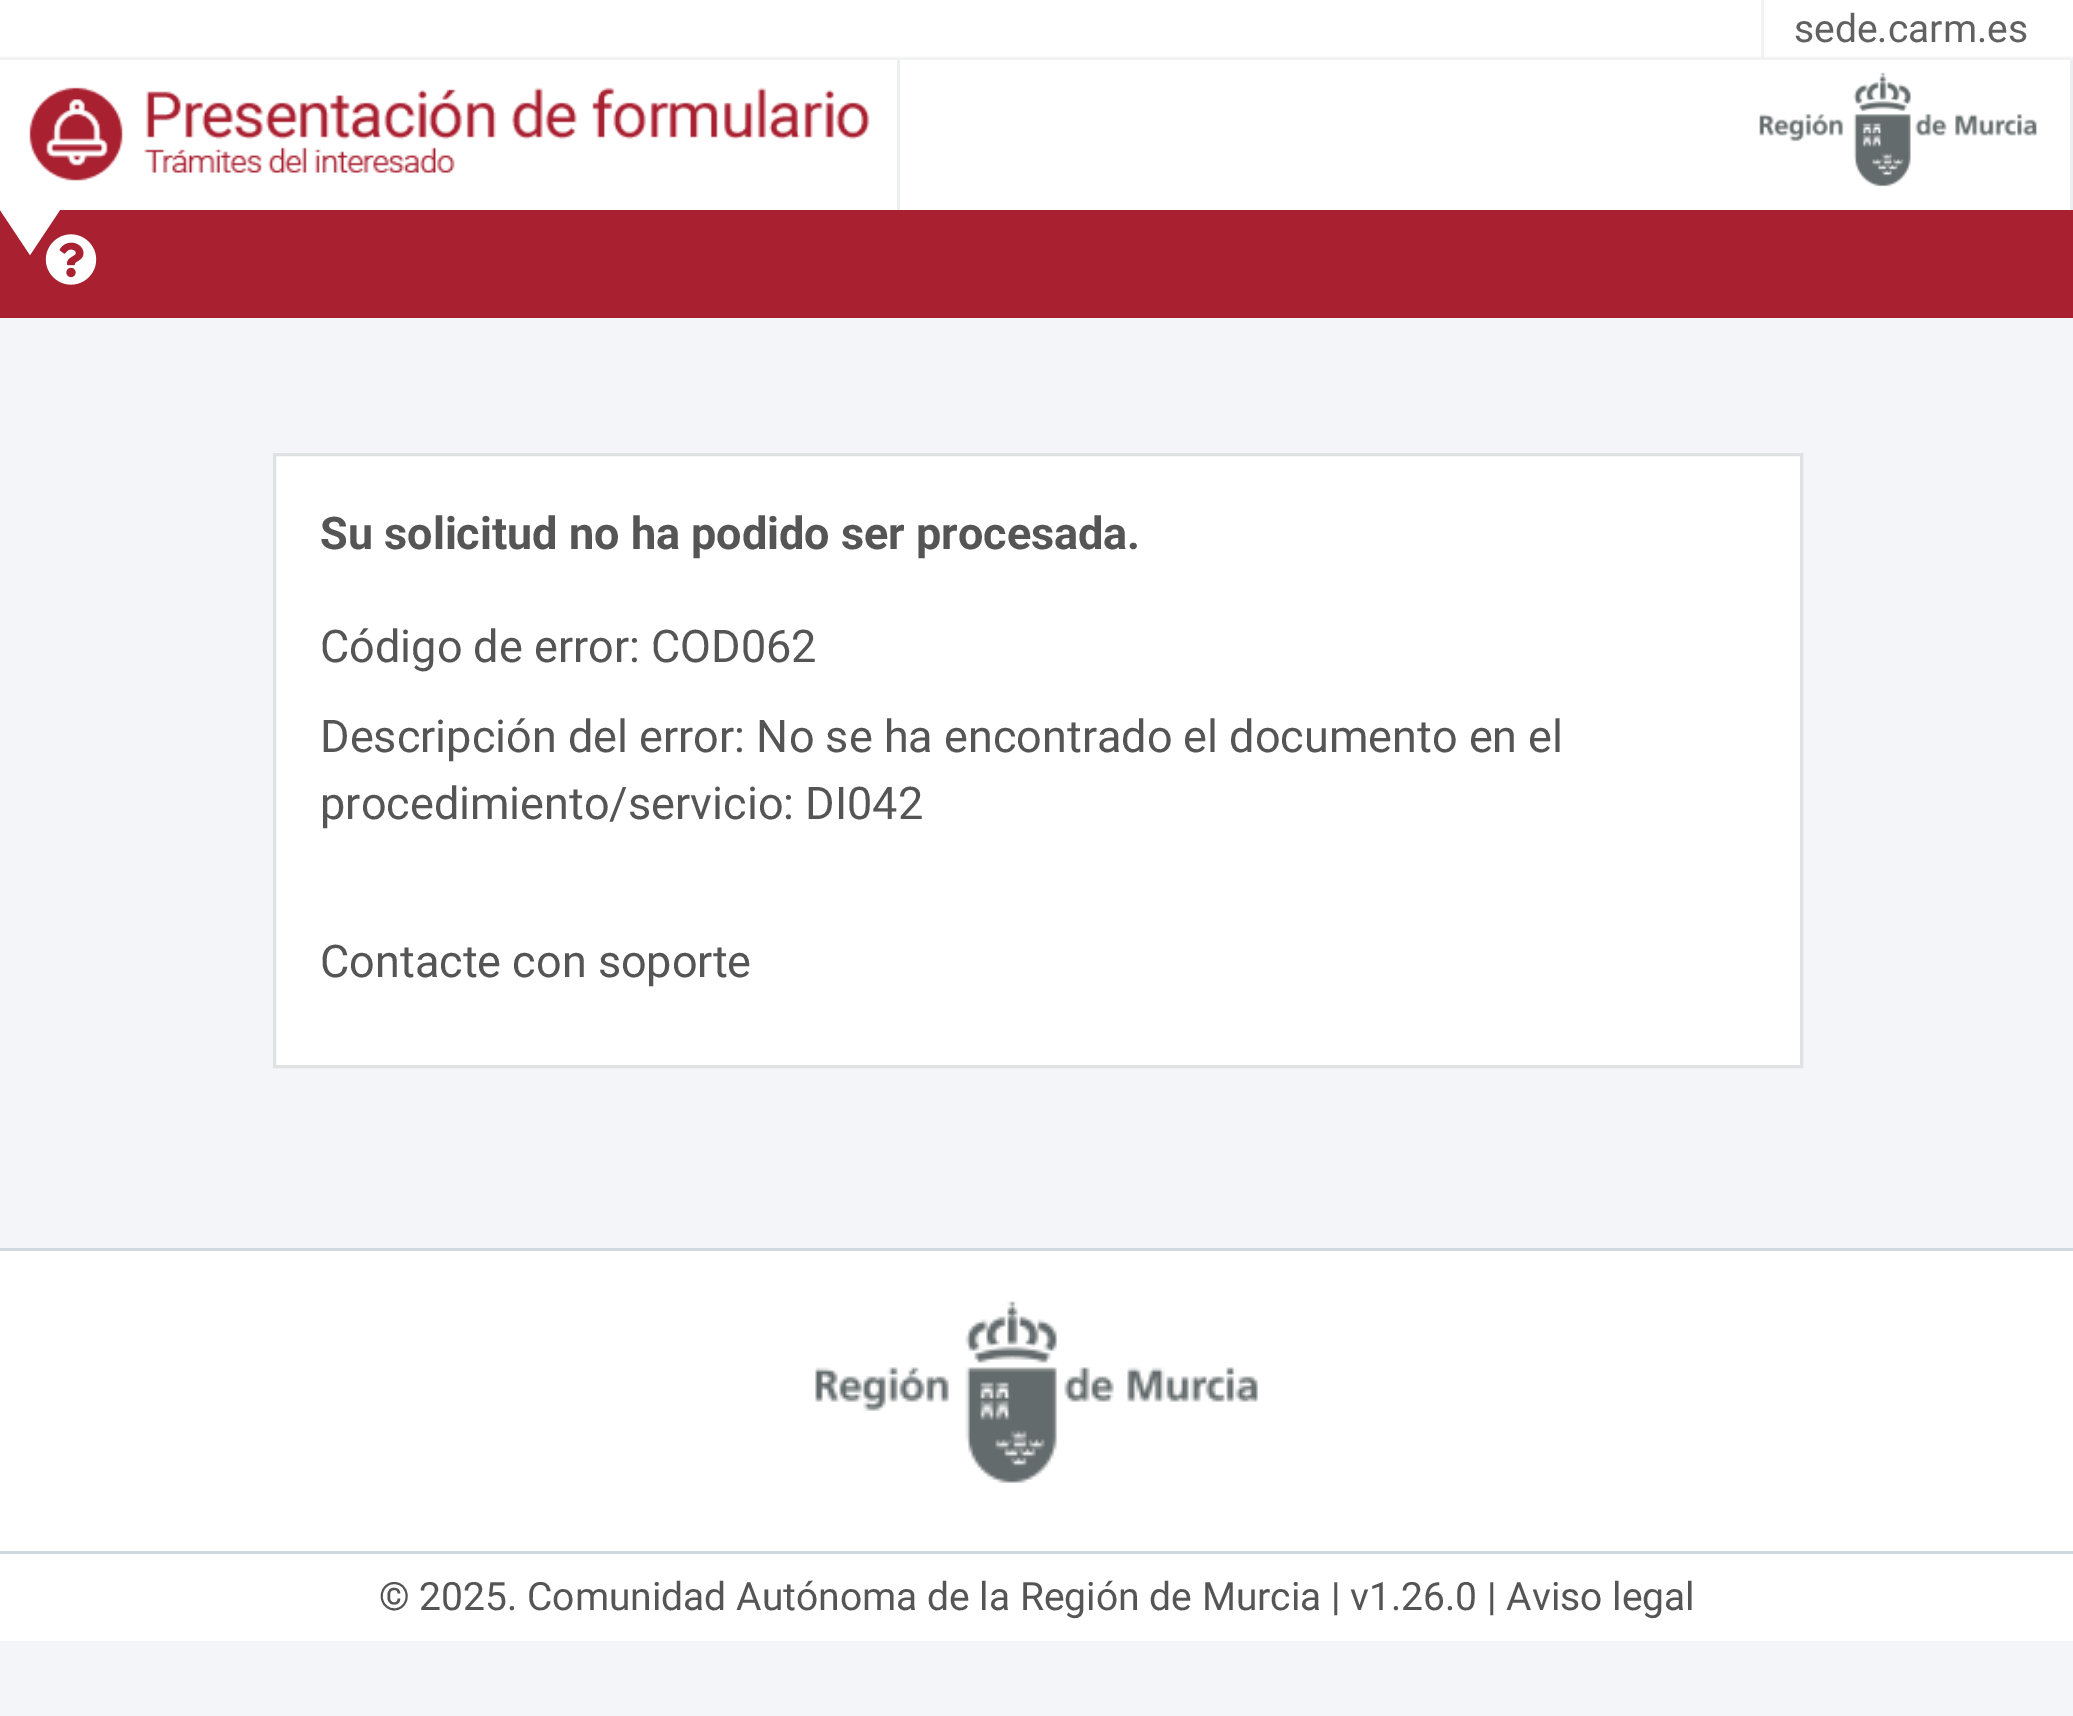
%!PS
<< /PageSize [2073 1716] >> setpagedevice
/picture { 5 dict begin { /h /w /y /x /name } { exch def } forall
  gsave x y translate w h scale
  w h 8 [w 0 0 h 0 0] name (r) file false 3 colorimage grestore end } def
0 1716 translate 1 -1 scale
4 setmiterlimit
0.953 0.961 0.973 setrgbcolor
0 0 2073 1716 rectfill
1 setgray
0 0 2073 210 rectfill
(img1.rgb) 0 56 2073 4 picture
0.949 setgray
1761 0 3 60 rectfill
/Roboto-Regular [39 0 0 -39 0 0] selectfont
0.38 setgray
1794 42 moveto (sede.carm.es) show
0.925 0.937 0.945 setrgbcolor
897 60 3 150 rectfill
(img2.rgb) 29 87 841 94 picture
0.663 0.125 0.192 setrgbcolor
0 210 2073 108 rectfill
(img4.rgb) 45 234 52 51 picture
1 setgray
newpath 0 210 moveto 60 210 lineto 30 255 lineto closepath fill
0.925 0.937 0.945 setrgbcolor
2070 60 3 150 rectfill
(img3.rgb) 1759 72 278 115 picture
1 setgray
newpath 274.5 454.5 moveto 1801.5 454.5 lineto 1801.5 1066.5 lineto 274.5 1066.5 lineto closepath gsave fill grestore
0.875 0.886 0.89 setrgbcolor
3 setlinewidth
stroke
/Roboto-Bold [45 0 0 -45 0 0] selectfont
0.333 setgray
320 549 moveto (Su solicitud no ha podido ser procesada.) show
/Roboto-Regular [45 0 0 -45 0 0] selectfont
320 662 moveto (Código de error: COD062) show
320 752 moveto (Descripción del error: No se ha encontrado el documento en el) show
320 819 moveto (procedimiento/servicio: DI042) show
320 977 moveto (Contacte con soporte) show
1 setgray
0 1251 2073 390 rectfill
0.812 0.847 0.863 setrgbcolor
0 1248 2073 3 rectfill
(img5.rgb) 815 1301 443 182 picture
0 1551 2073 3 rectfill
/Roboto-Regular [39 0 0 -39 0 0] selectfont
0.333 setgray
379 1610 moveto (© 2025. Comunidad Autónoma de la Región de Murcia | v1.26.0 | Aviso legal) show
showpage
